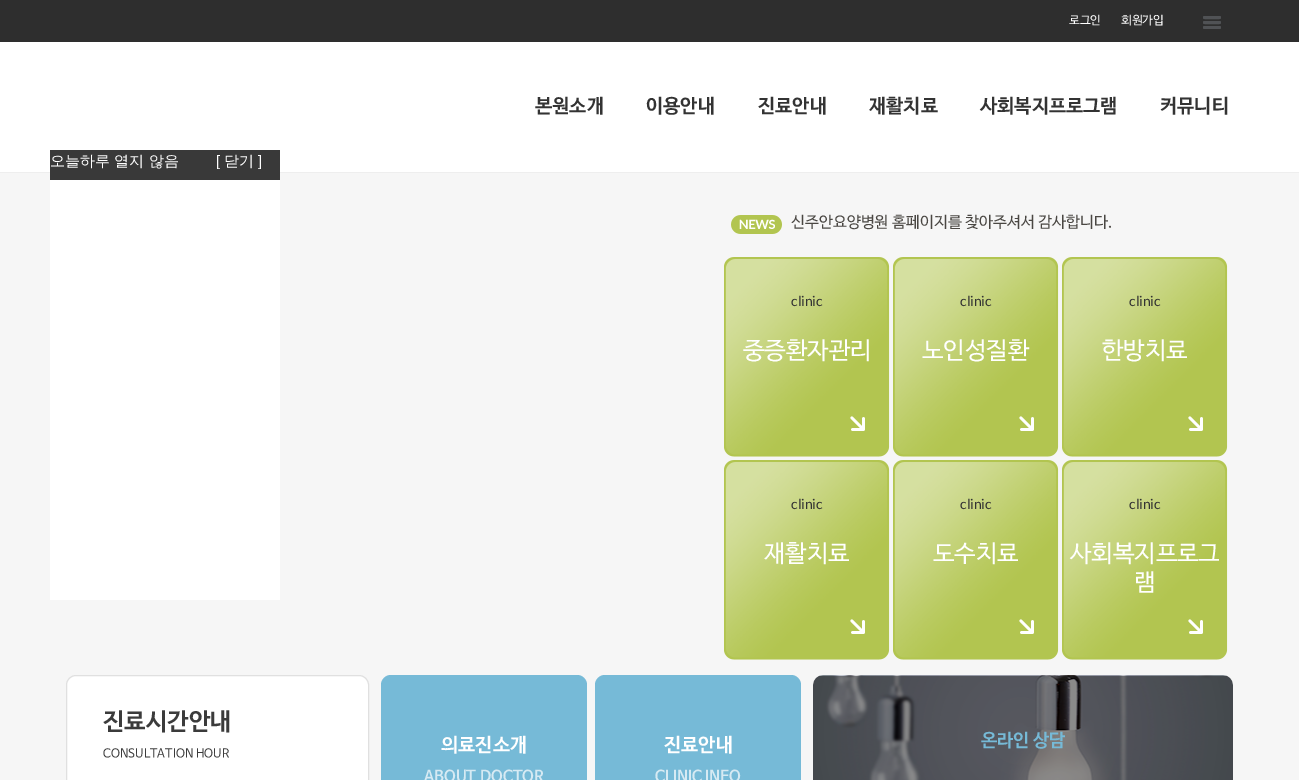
%!PS
<< /PageSize [1299 780] >> setpagedevice
/roundrect { 5 dict begin { /r /h /w /y /x } { exch def } forall
  x r add y moveto x w add y 2 copy h add r arct x w add y h add x 1 index r arct
  x y h add x y r arct x y 2 copy exch w add exch r arct closepath end } def
/picture { 5 dict begin { /h /w /y /x /name } { exch def } forall
  gsave x y translate w h scale
  w h 8 [w 0 0 h 0 0] name (r) file false 3 colorimage grestore end } def
0 780 translate 1 -1 scale
4 setmiterlimit
1 setgray
0 0 1299 780 rectfill
0.933 setgray
0 172 1299 1 rectfill
0.18 setgray
0 0 1299 42 rectfill
/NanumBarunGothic-Regular [12 0 0 -12 0 0] selectfont
1 setgray
1069 24 moveto (로그인) show
1121 24 moveto (회원가입) show
(img1.rgb) 1203 16 18 13 picture
/NanumBarunGothic-Bold [19.25 0 0 -19.25 0 0] selectfont
0.2 setgray
535 112 moveto (본원소개) show
646 112 moveto (이용안내) show
758 112 moveto (진료안내) show
869 112 moveto (재활치료) show
980 112 moveto (사회복지프로그램) show
1160 112 moveto (커뮤니티) show
0.965 setgray
0 173 1299 607 rectfill
(img2.rgb) 731 215 51 19 picture
/NanumBarunGothic-Regular [15.6 0 0 -15.6 0 0] selectfont
0.29 0.278 0.263 setrgbcolor
791 227 moveto (신주안요양병원 홈페이지를 찾아주셔서 감사합니다.) show
(img3.rgb) 724 257 166 200 picture
/Lato-Regular [14 0 0 -14 0 0] selectfont
0.2 setgray
791 306 moveto (clinic) show
/NanumBarunGothic-Regular [24 0 0 -24 0 0] selectfont
1 setgray
743 358 moveto (중증환자관리) show
(img3.rgb) 893 257 166 200 picture
/Lato-Regular [14 0 0 -14 0 0] selectfont
0.2 setgray
960 306 moveto (clinic) show
/NanumBarunGothic-Regular [24 0 0 -24 0 0] selectfont
1 setgray
922 358 moveto (노인성질환) show
(img3.rgb) 1062 257 166 200 picture
/Lato-Regular [14 0 0 -14 0 0] selectfont
0.2 setgray
1129 306 moveto (clinic) show
/NanumBarunGothic-Regular [24 0 0 -24 0 0] selectfont
1 setgray
1102 358 moveto (한방치료) show
(img3.rgb) 724 460 166 200 picture
/Lato-Regular [14 0 0 -14 0 0] selectfont
0.2 setgray
791 509 moveto (clinic) show
/NanumBarunGothic-Regular [24 0 0 -24 0 0] selectfont
1 setgray
764 561 moveto (재활치료) show
(img3.rgb) 893 460 166 200 picture
/Lato-Regular [14 0 0 -14 0 0] selectfont
0.2 setgray
960 509 moveto (clinic) show
/NanumBarunGothic-Regular [24 0 0 -24 0 0] selectfont
1 setgray
933 561 moveto (도수치료) show
(img3.rgb) 1062 460 166 200 picture
/Lato-Regular [14 0 0 -14 0 0] selectfont
0.2 setgray
1129 509 moveto (clinic) show
/NanumBarunGothic-Regular [24 0 0 -24 0 0] selectfont
1 setgray
1070 561 moveto (사회복지프로그) show
1134 590 moveto (램) show
66.5 675.5 302 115 9.5 roundrect gsave fill grestore
0.878 setgray
stroke
/NanumBarunGothic-Bold [24 0 0 -24 0 0] selectfont
0.231 setgray
103 729 moveto (진료시간안내) show
/NanumBarunGothic-Regular [12 0 0 -12 0 0] selectfont
103 757 moveto (CONSULTATION HOUR) show
0.463 0.729 0.843 setrgbcolor
381 675 206 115 10 roundrect fill
/NanumBarunGothic-Bold [19.25 0 0 -19.25 0 0] selectfont
1 setgray
441 751 moveto (의료진소개) show
/NanumBarunGothic-Bold [15.6 0 0 -15.6 0 0] selectfont
0.839 0.918 0.953 setrgbcolor
424 781 moveto (ABOUT DOCTOR) show
0.463 0.729 0.843 setrgbcolor
595 675 206 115 10 roundrect fill
/NanumBarunGothic-Bold [19.25 0 0 -19.25 0 0] selectfont
1 setgray
664 751 moveto (진료안내) show
/NanumBarunGothic-Bold [15.6 0 0 -15.6 0 0] selectfont
0.839 0.918 0.953 setrgbcolor
655 781 moveto (CLINIC INFO) show
(img4.rgb) 813 675 420 105 picture
/NanumBarunGothic-Bold [18 0 0 -18 0 0] selectfont
0.463 0.729 0.843 setrgbcolor
981 746 moveto (온라인 상담) show
1 setgray
50 180 230 420 rectfill
0.224 setgray
50 150 230 30 rectfill
/WenQuanYiZenHei-Medium [15 0 0 -15 0 0] selectfont
1 setgray
50 166 moveto (오늘하루 열지 않음) show
/LiberationSans-Regular [15 0 0 -15 0 0] selectfont
216 166 moveto ([) show
/WenQuanYiZenHei-Medium [15 0 0 -15 0 0] selectfont
224 166 moveto (닫기) show
/LiberationSans-Regular [15 0 0 -15 0 0] selectfont
258 166 moveto (]) show
showpage
